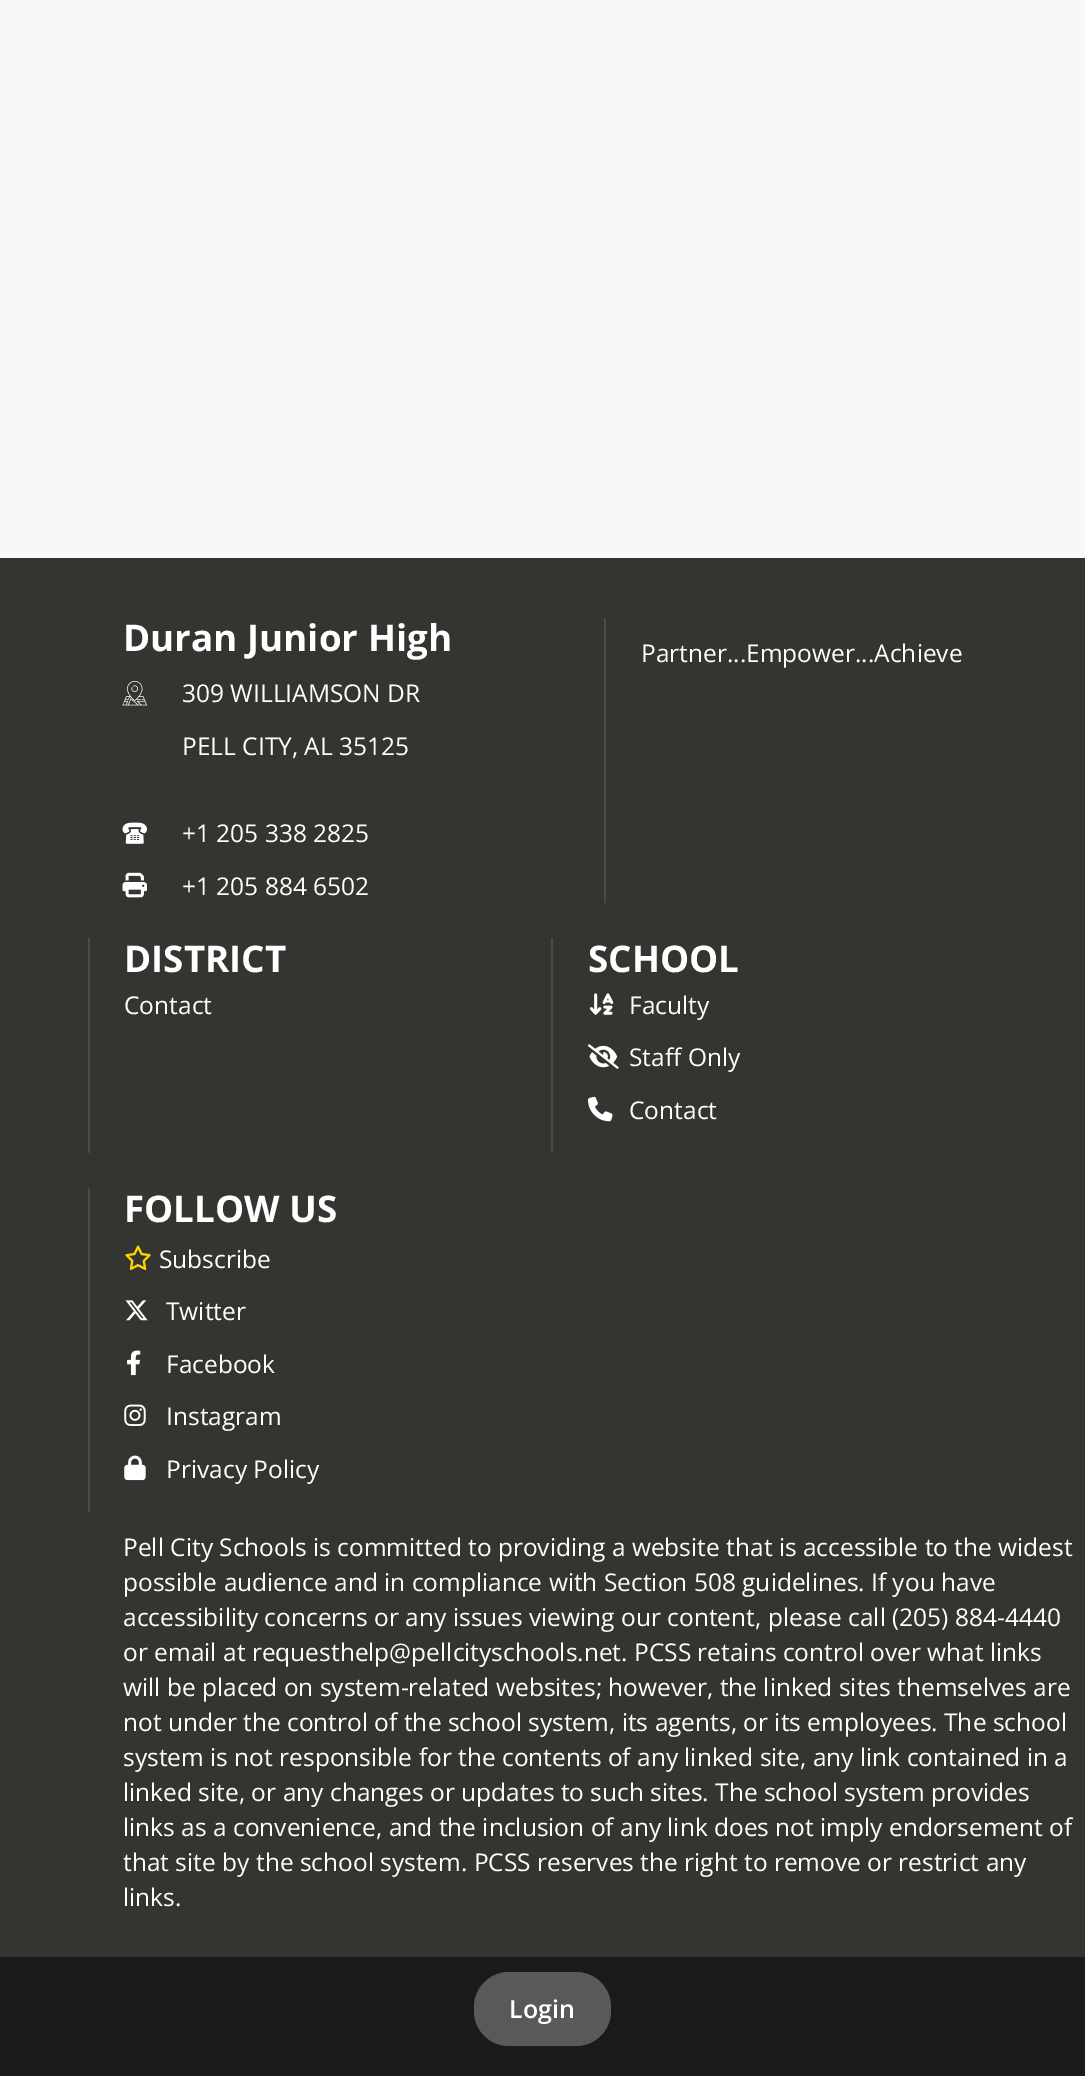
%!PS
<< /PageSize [1085 2076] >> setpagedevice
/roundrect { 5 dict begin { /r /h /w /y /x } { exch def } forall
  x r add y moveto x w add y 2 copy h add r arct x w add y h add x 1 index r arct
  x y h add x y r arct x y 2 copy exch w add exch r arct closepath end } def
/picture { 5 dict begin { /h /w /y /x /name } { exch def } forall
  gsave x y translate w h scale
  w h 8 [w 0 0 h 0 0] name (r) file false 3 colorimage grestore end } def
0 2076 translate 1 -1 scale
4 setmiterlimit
0.973 setgray
0 0 1085 2076 rectfill
0.204 0.204 0.188 setrgbcolor
0 558 1085 1399 rectfill
/OpenSans-Bold [36.75 0 0 -36.75 0 0] selectfont
1 setgray
123 651 moveto (Duran Junior High) show
(img1.rgb) 122 680 25 26 picture
/OpenSans-Regular [24.5 0 0 -24.5 0 0] selectfont
182 702 moveto (309 WILLIAMSON DR) show
182 755 moveto (PELL CITY, AL 35125) show
(img2.rgb) 122 822 25 22 picture
182 842 moveto (+1 205 338 2825) show
(img3.rgb) 122 872 25 26 picture
182 895 moveto (+1 205 884 6502) show
0.286 0.29 0.302 setrgbcolor
604 618 2 285 rectfill
1 setgray
641 662 moveto (Partner...Empower...Achieve) show
0.286 0.29 0.302 setrgbcolor
88 938 2 215 rectfill
/OpenSans-Bold [36.75 0 0 -36.75 0 0] selectfont
1 setgray
124 972 moveto (DISTRICT) show
/OpenSans-Regular [24.5 0 0 -24.5 0 0] selectfont
124 1014 moveto (Contact) show
0.286 0.29 0.302 setrgbcolor
551 938 2 215 rectfill
/OpenSans-Bold [36.75 0 0 -36.75 0 0] selectfont
1 setgray
588 972 moveto (SCHOOL) show
(img4.rgb) 589 993 25 22 picture
/OpenSans-Regular [24.5 0 0 -24.5 0 0] selectfont
629 1014 moveto (Faculty) show
(img5.rgb) 588 1044 31 25 picture
629 1066 moveto (Staff Only) show
(img6.rgb) 588 1096 25 26 picture
629 1119 moveto (Contact) show
0.286 0.29 0.302 setrgbcolor
88 1188 2 324 rectfill
/OpenSans-Bold [36.75 0 0 -36.75 0 0] selectfont
1 setgray
124 1222 moveto (FOLLOW US) show
(img7.rgb) 125 1245 26 25 picture
/OpenSans-Regular [24.5 0 0 -24.5 0 0] selectfont
159 1268 moveto (Subscribe) show
(img8.rgb) 125 1300 23 21 picture
166 1320 moveto (Twitter) show
(img9.rgb) 127 1350 14 26 picture
166 1373 moveto (Facebook) show
(img10.rgb) 124 1404 22 22 picture
166 1425 moveto (Instagram) show
(img11.rgb) 124 1455 22 26 picture
166 1478 moveto (Privacy Policy) show
123 1556 moveto (Pell City Schools is committed to providing a website that is accessible to the widest) show
123 1591 moveto (possible audience and in compliance with Section 508 guidelines. If you have) show
123 1626 moveto (accessibility concerns or any issues viewing our content, please call \(205\) 884-4440) show
123 1661 moveto (or email at requesthelp@pellcityschools.net. PCSS retains control over what links) show
123 1696 moveto (will be placed on system-related websites; however, the linked sites themselves are) show
123 1731 moveto (not under the control of the school system, its agents, or its employees. The school) show
123 1766 moveto (system is not responsible for the contents of any linked site, any link contained in a) show
123 1801 moveto (linked site, or any changes or updates to such sites. The school system provides) show
123 1836 moveto (links as a convenience, and the inclusion of any link does not imply endorsement of) show
123 1871 moveto (that site by the school system. PCSS reserves the right to remove or restrict any) show
123 1906 moveto (links.) show
0.102 setgray
0 1957 1085 119 rectfill
0.349 setgray
474 1972 137 74 35 roundrect fill
/OpenSans-SemiBold [25 0 0 -25 0 0] selectfont
1 setgray
509 2018 moveto (Login) show
showpage
